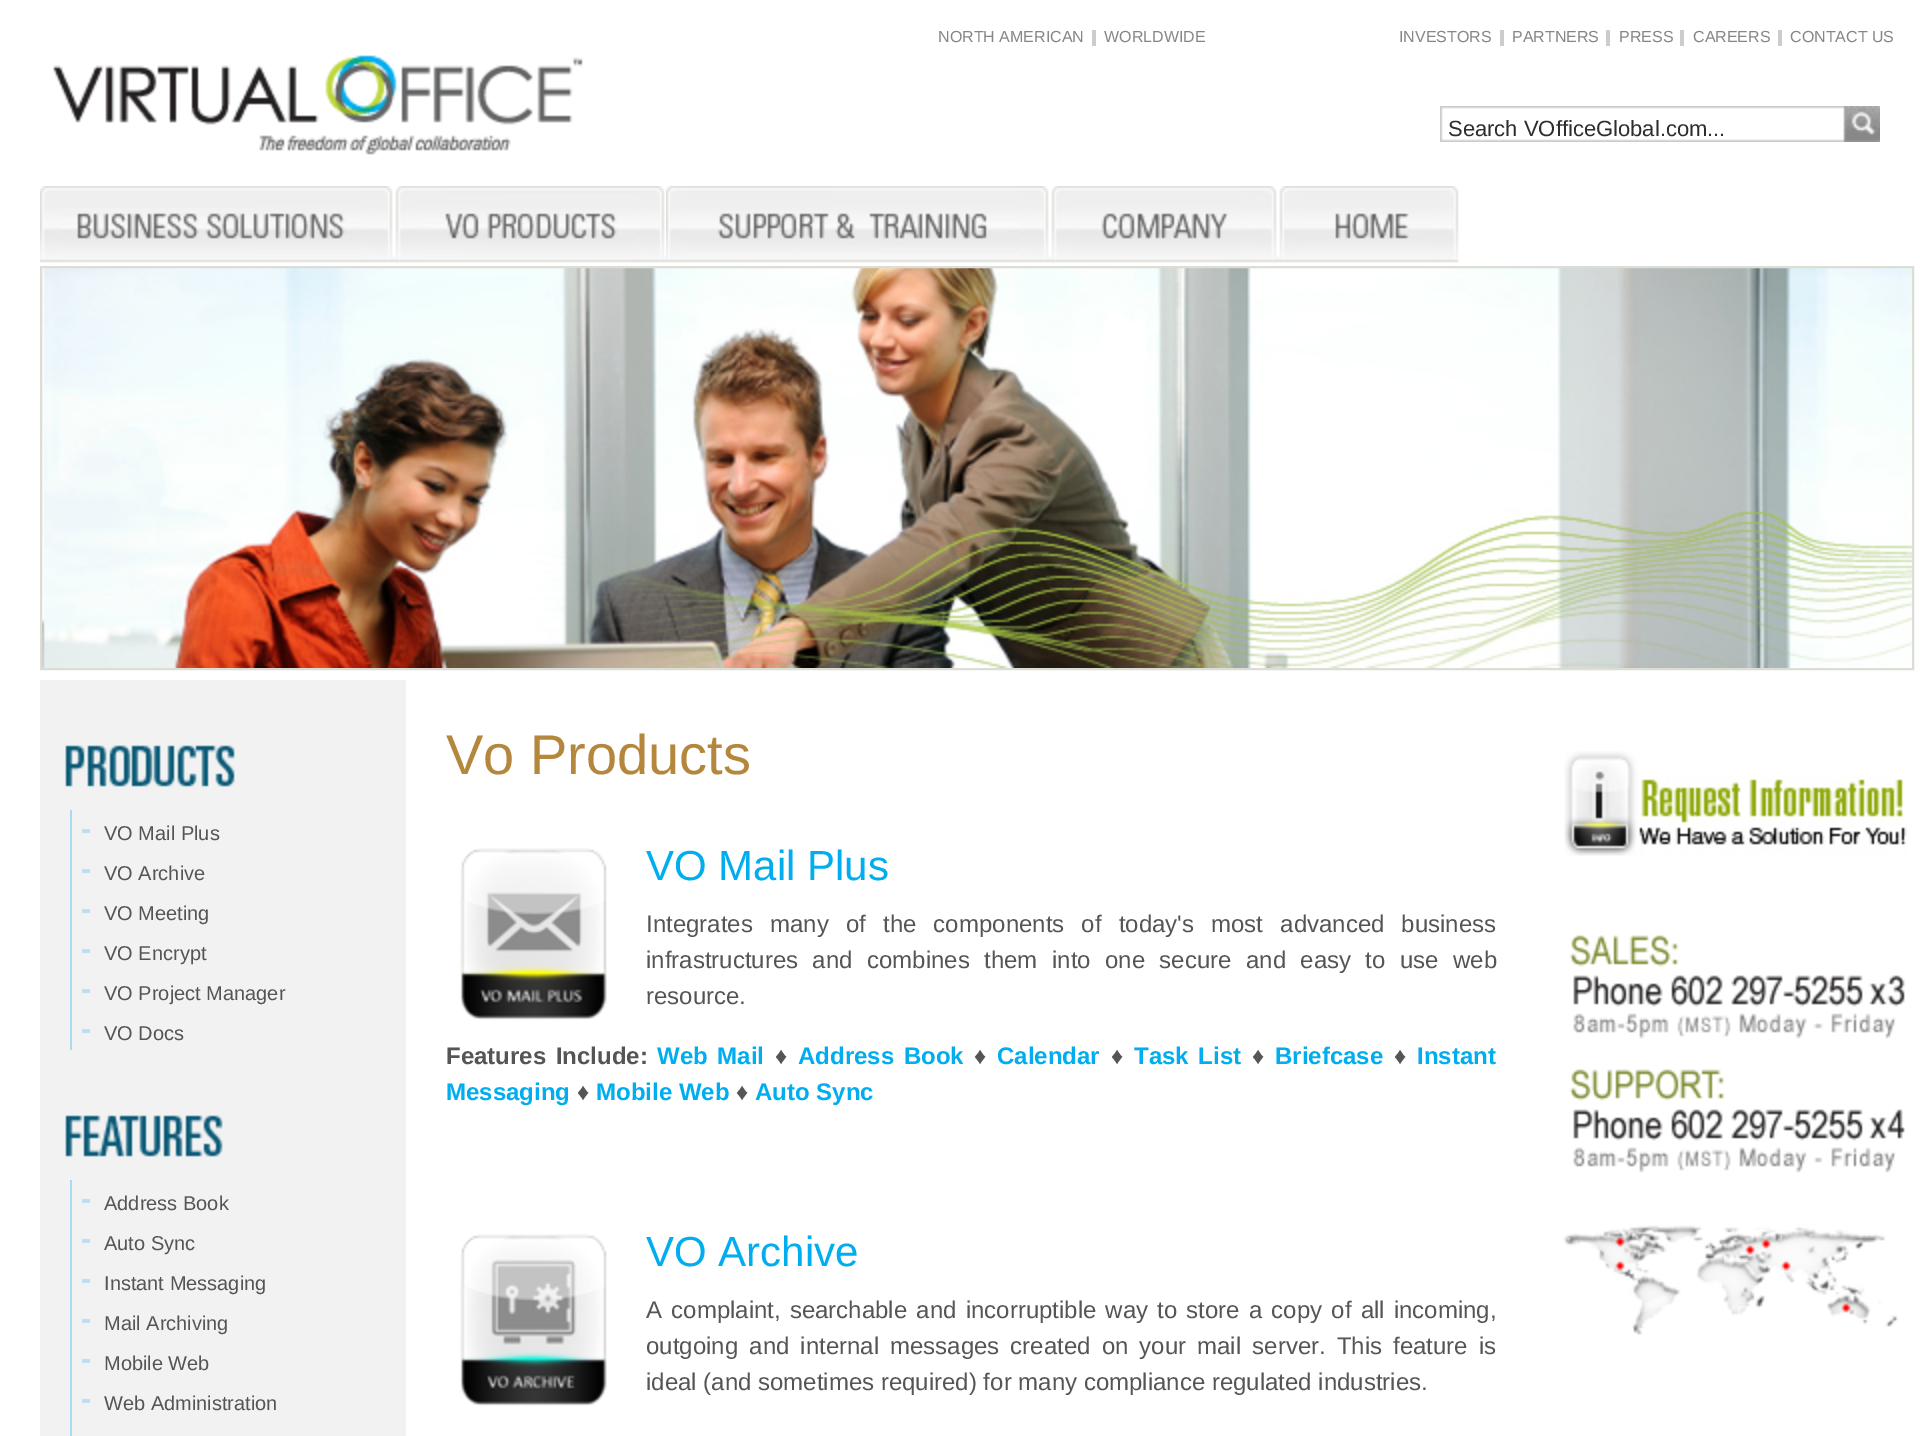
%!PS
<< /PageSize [1920 1436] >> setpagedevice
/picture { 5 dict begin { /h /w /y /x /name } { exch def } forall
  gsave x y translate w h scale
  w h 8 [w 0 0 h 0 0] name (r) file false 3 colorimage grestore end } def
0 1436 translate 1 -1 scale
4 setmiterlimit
1 setgray
0 0 1920 1436 rectfill
0.8 setgray
1092 30 4 16 rectfill
/LiberationSans-Regular [16 0 0 -16 0 0] selectfont
0.525 setgray
938 42 moveto (NORTH AMERICAN) show
1104 42 moveto (WORLDWIDE) show
0.8 setgray
1500 30 4 16 rectfill
0.525 setgray
1399 42 moveto (INVESTORS) show
0.8 setgray
1606 30 4 16 rectfill
0.525 setgray
1512 42 moveto (PARTNERS) show
0.8 setgray
1680 30 4 16 rectfill
0.525 setgray
1619 42 moveto (PRESS) show
0.8 setgray
1778 30 4 16 rectfill
0.525 setgray
1693 42 moveto (CAREERS) show
1790 42 moveto (CONTACT US) show
(img1.rgb) 53 55 530 100 picture
(img2.rgb) 1440 106 440 36 picture
/LiberationSans-Regular [22 0 0 -22 0 0] selectfont
0.176 setgray
1448 136 moveto (Search VOfficeGlobal.com...) show
(img3.rgb) 40 186 354 77 picture
(img4.rgb) 394 186 272 77 picture
(img5.rgb) 666 186 384 77 picture
(img6.rgb) 1050 186 228 77 picture
(img7.rgb) 1278 186 181 77 picture
(img8.rgb) 42 268 1870 400 picture
0.863 0.871 0.839 setrgbcolor
2 setlinewidth
41 267 1872 402 rectstroke
0.949 setgray
40 680 366 756 rectfill
(img9.rgb) 65 745 170 42 picture
0.671 0.847 0.949 setrgbcolor
70 810 2 240 rectfill
0.741 0.875 0.949 setrgbcolor
82 829 8 4 rectfill
/LiberationSans-Regular [20 0 0 -20 0 0] selectfont
0.333 setgray
104 840 moveto (VO Mail Plus) show
0.741 0.875 0.949 setrgbcolor
82 869 8 4 rectfill
0.333 setgray
104 880 moveto (VO Archive) show
0.741 0.875 0.949 setrgbcolor
82 909 8 4 rectfill
0.333 setgray
104 920 moveto (VO Meeting) show
0.741 0.875 0.949 setrgbcolor
82 949 8 4 rectfill
0.333 setgray
104 960 moveto (VO Encrypt) show
0.741 0.875 0.949 setrgbcolor
82 989 8 4 rectfill
0.333 setgray
104 1000 moveto (VO Project Manager) show
0.741 0.875 0.949 setrgbcolor
82 1029 8 4 rectfill
0.333 setgray
104 1040 moveto (VO Docs) show
(img10.rgb) 65 1115 158 42 picture
0.671 0.847 0.949 setrgbcolor
70 1180 2 256 rectfill
0.741 0.875 0.949 setrgbcolor
82 1199 8 4 rectfill
0.333 setgray
104 1210 moveto (Address Book) show
0.741 0.875 0.949 setrgbcolor
82 1239 8 4 rectfill
0.333 setgray
104 1250 moveto (Auto Sync) show
0.741 0.875 0.949 setrgbcolor
82 1279 8 4 rectfill
0.333 setgray
104 1290 moveto (Instant Messaging) show
0.741 0.875 0.949 setrgbcolor
82 1319 8 4 rectfill
0.333 setgray
104 1330 moveto (Mail Archiving) show
0.741 0.875 0.949 setrgbcolor
82 1359 8 4 rectfill
0.333 setgray
104 1370 moveto (Mobile Web) show
0.741 0.875 0.949 setrgbcolor
82 1399 8 4 rectfill
0.333 setgray
104 1410 moveto (Web Administration) show
/LiberationSans-Regular [56 0 0 -56 0 0] selectfont
0.706 0.529 0.235 setrgbcolor
446 774 moveto (Vo Products) show
(img11.rgb) 460 848 147 172 picture
/LiberationSans-Regular [42 0 0 -42 0 0] selectfont
0 0.682 0.937 setrgbcolor
646 880 moveto (VO Mail Plus) show
/LiberationSans-Regular [24 0 0 -24 0 0] selectfont
0.333 setgray
646 932 moveto 10.5 0 32 (Integrates many of the components of today's most advanced business) widthshow
646 968 moveto 7.75 0 32 (infrastructures and combines them into one secure and easy to use web) widthshow
646 1004 moveto (resource.) show
/LiberationSans-Bold [24 0 0 -24 0 0] selectfont
446 1064 moveto 3 0 32 (Features Include:) widthshow
0 0.682 0.937 setrgbcolor
657 1064 moveto 3 0 32 (Web Mail) widthshow
0.333 setgray
775 1064 moveto (♦) show
0 0.682 0.937 setrgbcolor
798 1064 moveto 3 0 32 (Address Book) widthshow
0.333 setgray
974 1064 moveto (♦) show
0 0.682 0.937 setrgbcolor
997 1064 moveto (Calendar) show
0.333 setgray
1111 1064 moveto (♦) show
0 0.682 0.937 setrgbcolor
1134 1064 moveto 3 0 32 (Task List) widthshow
0.333 setgray
1252 1064 moveto (♦) show
0 0.682 0.937 setrgbcolor
1275 1064 moveto (Briefcase) show
0.333 setgray
1394 1064 moveto (♦) show
0 0.682 0.937 setrgbcolor
1417 1064 moveto (Instant) show
446 1100 moveto (Messaging) show
0.333 setgray
577 1100 moveto (♦) show
0 0.682 0.937 setrgbcolor
596 1100 moveto (Mobile Web) show
0.333 setgray
736 1100 moveto (♦) show
0 0.682 0.937 setrgbcolor
755 1100 moveto (Auto Sync) show
(img12.rgb) 460 1234 147 172 picture
/LiberationSans-Regular [42 0 0 -42 0 0] selectfont
646 1266 moveto (VO Archive) show
/LiberationSans-Regular [24 0 0 -24 0 0] selectfont
0.333 setgray
646 1318 moveto 2.5 0 32 (A complaint, searchable and incorruptible way to store a copy of all incoming,) widthshow
646 1354 moveto 4.4 0 32 (outgoing and internal messages created on your mail server. This feature is) widthshow
646 1390 moveto (ideal \(and sometimes required\) for many compliance regulated industries.) show
(img13.rgb) 1564 751 343 105 picture
(img14.rgb) 1563 935 342 400 picture
showpage
